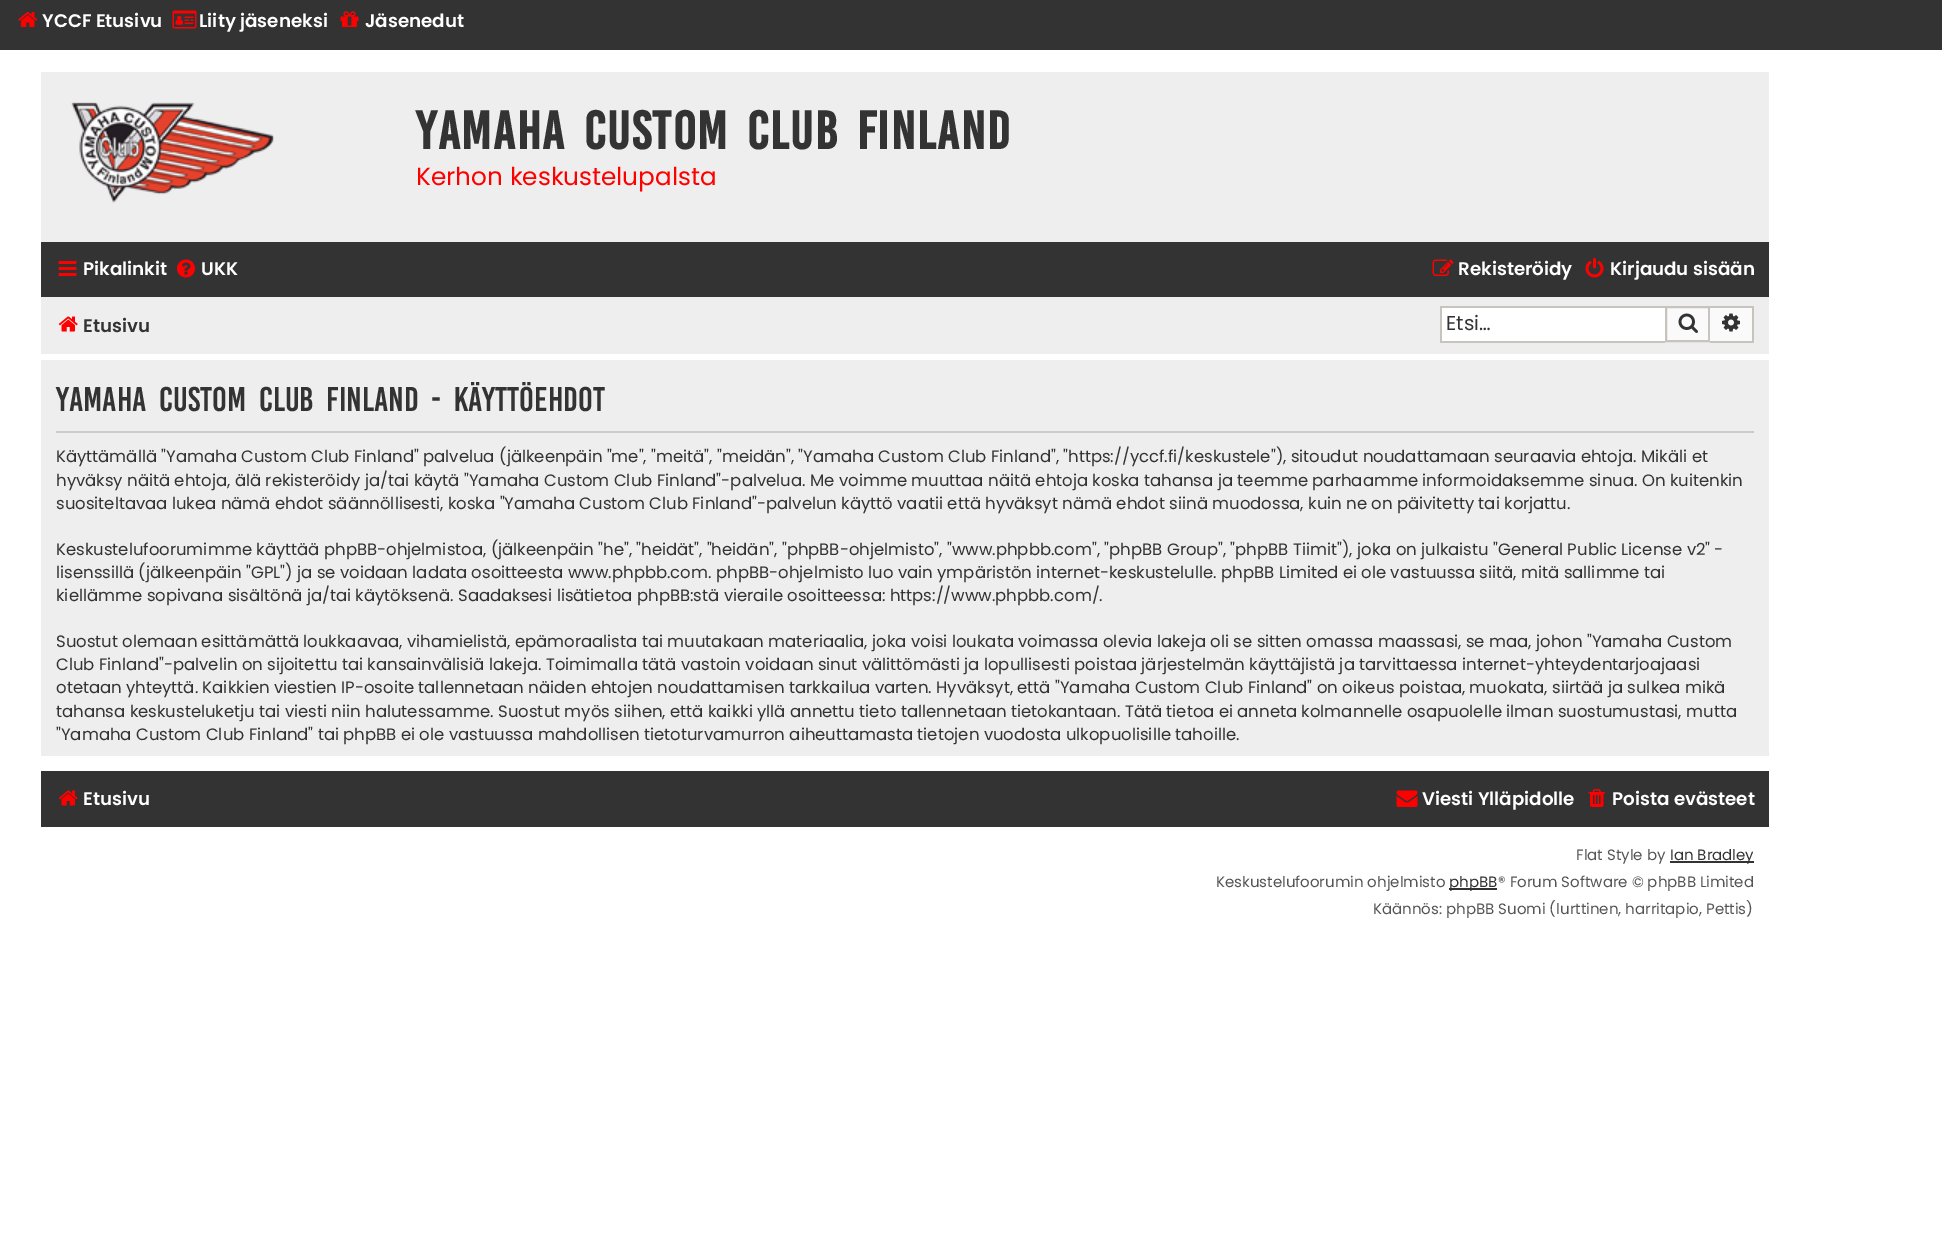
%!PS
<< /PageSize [1942 1244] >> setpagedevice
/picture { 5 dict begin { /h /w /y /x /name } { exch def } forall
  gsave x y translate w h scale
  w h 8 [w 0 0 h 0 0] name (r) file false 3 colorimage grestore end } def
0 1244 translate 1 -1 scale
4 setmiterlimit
1 setgray
0 0 1942 1244 rectfill
0.2 setgray
0 0 1942 50 rectfill
(img1.rgb) 18 12 20 15 picture
/Poppins-SemiBold [18.25 0 0 -18.25 0 0] selectfont
1 setgray
42 27 moveto (YCCF Etusivu) show
(img2.rgb) 172 10 25 19 picture
199 27 moveto (Liity jäseneksi) show
(img3.rgb) 340 11 19 16 picture
365 27 moveto (Jäsenedut) show
0.933 setgray
41 72 1728 170 rectfill
(img4.rgb) 71 102 203 101 picture
/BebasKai-Bold [41.25 0 0 -41.25 0 0] selectfont
0.2 setgray
416 149 moveto 6 0 32 1.5 0 (Yamaha Custom Club Finland) awidthshow
/Poppins-Regular [24.75 0 0 -24.75 0 0] selectfont
1 0 0 setrgbcolor
416 185 moveto (Kerhon keskustelupalsta) show
0.2 setgray
41 242 1728 55 rectfill
(img5.rgb) 58 261 19 15 picture
/Poppins-SemiBold [18.25 0 0 -18.25 0 0] selectfont
1 setgray
83 275 moveto (Pikalinkit) show
(img6.rgb) 177 259 18 19 picture
201 275 moveto (UKK) show
(img7.rgb) 1432 259 22 17 picture
1458 275 moveto (Rekisteröidy) show
(img8.rgb) 1585 258 19 20 picture
1610 275 moveto (Kirjaudu sisään) show
0.933 setgray
41 297 1728 57 rectfill
(img9.rgb) 58 316 20 16 picture
0.2 setgray
83 332 moveto (Etusivu) show
1 setgray
1442 308 223 33 rectfill
0.78 0.765 0.749 setrgbcolor
1440 306 225 2 rectfill
1440 341 225 2 rectfill
1440 306 2 36 rectfill
/Poppins-Regular [20 0 0 -20 0 0] selectfont
0.2 setgray
1446 330 moveto (Etsi…) show
0.98 setgray
newpath 1666 307 moveto 1709 307 lineto 1709 341 lineto 1666 341 lineto closepath gsave fill grestore
0.78 0.765 0.749 setrgbcolor
2 setlinewidth
stroke
(img10.rgb) 1678 313 20 20 picture
0.98 setgray
1710 308 42 33 rectfill
0.78 0.765 0.749 setrgbcolor
1710 306 44 2 rectfill
1752 306 2 36 rectfill
1710 341 44 2 rectfill
(img11.rgb) 1722 313 18 19 picture
0.933 setgray
41 360 1728 396 rectfill
0.8 setgray
56 431 1698 2 rectfill
/BebasKai-Regular [26.4 0 0 -26.4 0 0] selectfont
0.2 setgray
56 411 moveto 6 0 32 (Yamaha Custom Club Finland - Käyttöehdot) widthshow
/Poppins-Regular [16.5 0 0 -16.5 0 0] selectfont
56 462 moveto (Käyttämällä "Yamaha Custom Club Finland" palvelua \(jälkeenpäin "me", "meitä", "meidän", "Yamaha Custom Club Finland", "https://yccf.fi/keskustele"\), sitoudut noudattamaan seuraavia ehtoja. Mikäli et) show
56 486 moveto (hyväksy näitä ehtoja, älä rekisteröidy ja/tai käytä "Yamaha Custom Club Finland"-palvelua. Me voimme muuttaa näitä ehtoja koska tahansa ja teemme parhaamme informoidaksemme sinua. On kuitenkin) show
56 509 moveto (suositeltavaa lukea nämä ehdot säännöllisesti, koska "Yamaha Custom Club Finland"-palvelun käyttö vaatii että hyväksyt nämä ehdot siinä muodossa, kuin ne on päivitetty tai korjattu.) show
56 555 moveto (Keskustelufoorumimme käyttää phpBB-ohjelmistoa, \(jälkeenpäin "he", "heidät", "heidän", "phpBB-ohjelmisto", "www.phpbb.com", "phpBB Group", "phpBB Tiimit"\), joka on julkaistu "General Public License v2" -) show
56 578 moveto (lisenssillä \(jälkeenpäin "GPL"\) ja se voidaan ladata osoitteesta www.phpbb.com. phpBB-ohjelmisto luo vain ympäristön internet-keskustelulle. phpBB Limited ei ole vastuussa siitä, mitä sallimme tai) show
56 601 moveto (kiellämme sopivana sisältönä ja/tai käytöksenä. Saadaksesi lisätietoa phpBB:stä vieraile osoitteessa: https://www.phpbb.com/.) show
56 647 moveto (Suostut olemaan esittämättä loukkaavaa, vihamielistä, epämoraalista tai muutakaan materiaalia, joka voisi loukata voimassa olevia lakeja oli se sitten omassa maassasi, se maa, johon "Yamaha Custom) show
56 670 moveto (Club Finland"-palvelin on sijoitettu tai kansainvälisiä lakeja. Toimimalla tätä vastoin voidaan sinut välittömästi ja lopullisesti poistaa järjestelmän käyttäjistä ja tarvittaessa internet-yhteydentarjoajaasi) show
56 693 moveto (otetaan yhteyttä. Kaikkien viestien IP-osoite tallennetaan näiden ehtojen noudattamisen tarkkailua varten. Hyväksyt, että "Yamaha Custom Club Finland" on oikeus poistaa, muokata, siirtää ja sulkea mikä) show
56 717 moveto (tahansa keskusteluketju tai viesti niin halutessamme. Suostut myös siihen, että kaikki yllä annettu tieto tallennetaan tietokantaan. Tätä tietoa ei anneta kolmannelle osapuolelle ilman suostumustasi, mutta) show
56 740 moveto ("Yamaha Custom Club Finland" tai phpBB ei ole vastuussa mahdollisen tietoturvamurron aiheuttamasta tietojen vuodosta ulkopuolisille tahoille.) show
41 771 1728 56 rectfill
(img12.rgb) 58 790 20 16 picture
/Poppins-SemiBold [18.25 0 0 -18.25 0 0] selectfont
1 setgray
83 805 moveto (Etusivu) show
(img13.rgb) 1396 790 22 17 picture
1422 805 moveto (Viesti Ylläpidolle) show
(img14.rgb) 1588 789 17 18 picture
1612 805 moveto (Poista evästeet) show
/Poppins-Regular [15 0 0 -15 0 0] selectfont
0.333 setgray
1576 860 moveto (Flat Style by) show
0.2 setgray
1670 861 84 2 rectfill
1670 860 moveto (Ian Bradley) show
0.333 setgray
1216 887 moveto (Keskustelufoorumin ohjelmisto) show
0.2 setgray
1449 888 48 2 rectfill
1449 887 moveto (phpBB) show
0.333 setgray
1498 887 moveto (® Forum Software © phpBB Limited) show
1373 914 moveto (Käännös: phpBB Suomi \(lurttinen, harritapio, Pettis\)) show
showpage
